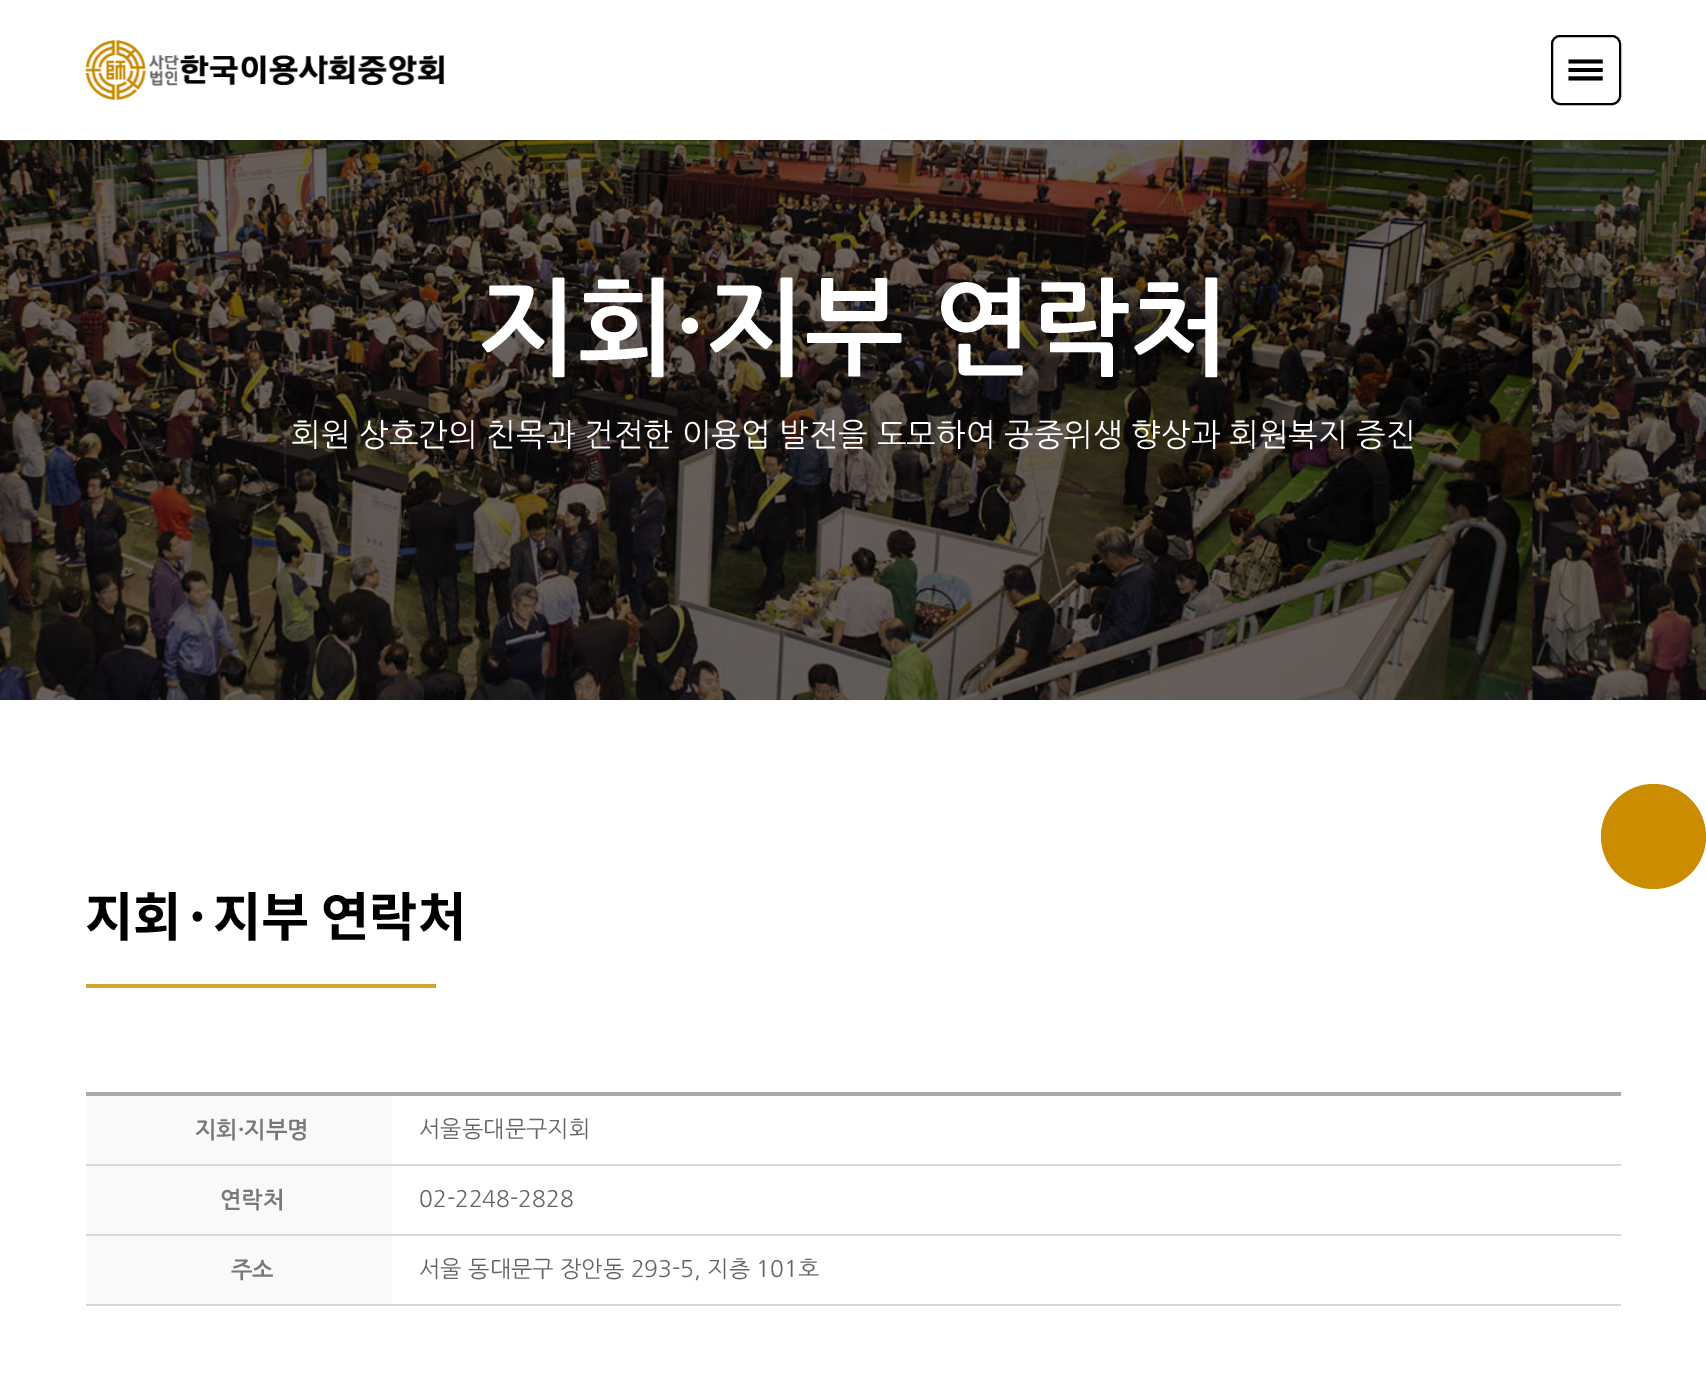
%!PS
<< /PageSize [1706 1390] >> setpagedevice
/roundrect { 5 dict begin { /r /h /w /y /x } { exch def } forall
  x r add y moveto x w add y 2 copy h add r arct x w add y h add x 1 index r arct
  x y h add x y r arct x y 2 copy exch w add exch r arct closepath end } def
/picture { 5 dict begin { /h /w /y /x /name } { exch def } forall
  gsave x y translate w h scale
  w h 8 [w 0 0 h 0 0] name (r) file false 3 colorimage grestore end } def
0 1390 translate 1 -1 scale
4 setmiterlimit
1 setgray
0 0 1706 1390 rectfill
(img1.rgb) 85 40 360 61 picture
0 setgray
2 setlinewidth
1552 36 68 68 8 roundrect stroke
/NanumGothic-Bold [52.5 0 0 -52.5 0 0] selectfont
1566 89 moveto (≡) show
(img2.rgb) 0 140 1706 560 picture
/NanumGothic-Bold [105 0 0 -105 0 0] selectfont
1 setgray
478 366 moveto (지회·지부 연락처) show
/NanumGothic-Regular [31.5 0 0 -31.5 0 0] selectfont
291 446 moveto (회원 상호간의 친목과 건전한 이용업 발전을 도모하여 공중위생 향상과 회원복지 증진) show
/NotoSansKR-Bold [52.5 0 0 -52.5 0 0] selectfont
0 setgray
85 936 moveto (지회·지부 연락처) show
0.82 0.639 0.2 setrgbcolor
86 984 350 4 rectfill
0.663 setgray
86 1092 1535 4 rectfill
0.976 setgray
86 1096 306 68 rectfill
0.843 setgray
86 1164 1535 2 rectfill
/NanumGothic-Bold [22.75 0 0 -22.75 0 0] selectfont
0.471 setgray
195 1138 moveto (지회·지부명) show
/NanumGothic-Regular [22.75 0 0 -22.75 0 0] selectfont
0.4 setgray
419 1137 moveto (서울동대문구지회) show
0.976 setgray
86 1166 306 68 rectfill
0.843 setgray
86 1234 1535 2 rectfill
/NanumGothic-Bold [22.75 0 0 -22.75 0 0] selectfont
0.471 setgray
220 1208 moveto (연락처) show
/NanumGothic-Regular [22.75 0 0 -22.75 0 0] selectfont
0.4 setgray
419 1207 moveto (02-2248-2828) show
0.976 setgray
86 1236 306 68 rectfill
0.843 setgray
86 1304 1535 2 rectfill
/NanumGothic-Bold [22.75 0 0 -22.75 0 0] selectfont
0.471 setgray
231 1278 moveto (주소) show
/NanumGothic-Regular [22.75 0 0 -22.75 0 0] selectfont
0.4 setgray
419 1277 moveto (서울 동대문구 장안동 293-5, 지층 101호) show
0.796 0.549 0 setrgbcolor
newpath 1653.5 836.5 52.5 0 360 arc closepath fill
showpage
